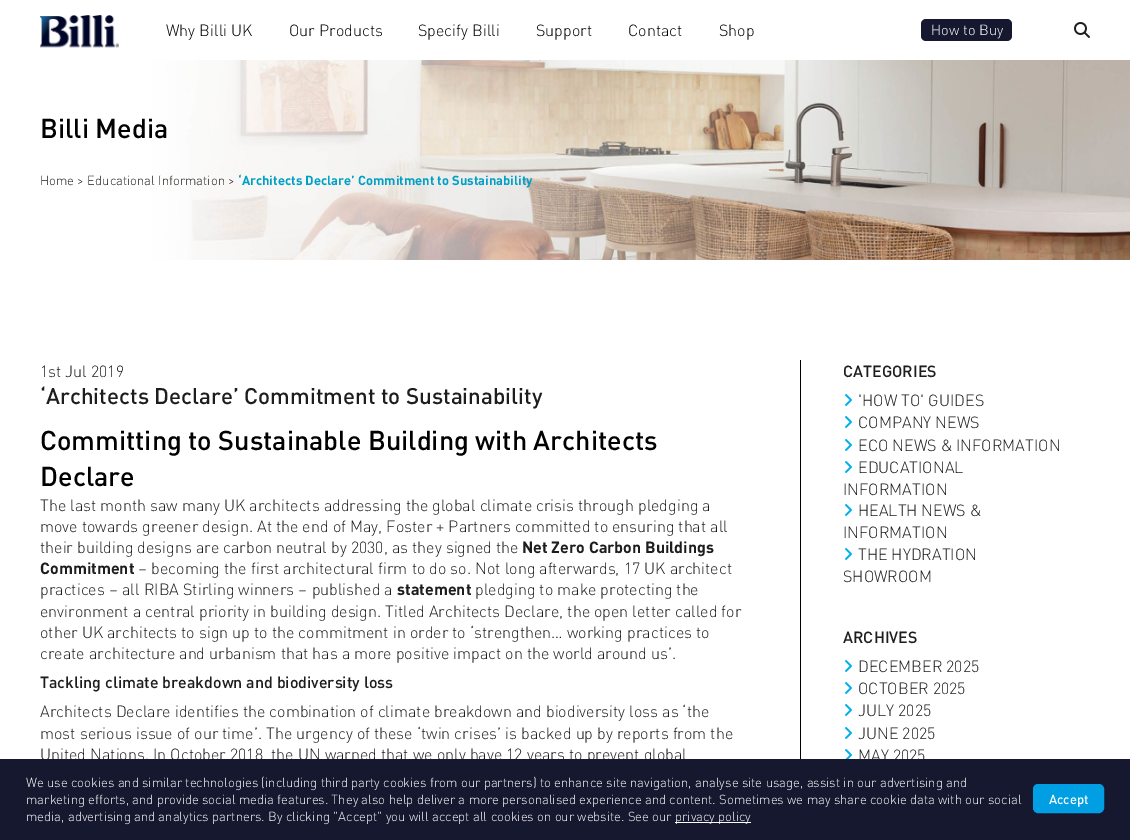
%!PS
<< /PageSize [1130 840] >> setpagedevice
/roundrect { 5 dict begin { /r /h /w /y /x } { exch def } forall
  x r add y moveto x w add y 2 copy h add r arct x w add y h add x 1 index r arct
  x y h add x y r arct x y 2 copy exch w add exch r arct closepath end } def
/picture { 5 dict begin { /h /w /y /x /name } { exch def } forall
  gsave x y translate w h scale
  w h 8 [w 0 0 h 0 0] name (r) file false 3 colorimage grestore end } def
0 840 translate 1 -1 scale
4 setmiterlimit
1 setgray
0 0 1130 840 rectfill
(img1.rgb) 40 15 79 33 picture
/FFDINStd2-Regular [16 0 0 -16 0 0] selectfont
0 setgray
166 36 moveto (Why Billi UK) show
289 36 moveto (Our Products) show
418 36 moveto (Specify Billi) show
536 36 moveto (Support) show
628 36 moveto (Contact) show
719 36 moveto (Shop) show
0.086 0.094 0.184 setrgbcolor
921 19 91 22 5 roundrect fill
/FFDINStd2-Regular [14.5 0 0 -14.5 0 0] selectfont
1 setgray
931 35 moveto (How to Buy) show
(img2.rgb) 1074 22 16 16 picture
(img3.rgb) 0 60 1130 200 picture
/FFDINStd-Regular [27 0 0 -27 0 0] selectfont
0 setgray
40 138 moveto (Billi Media) show
/FFDINStd2-Regular [13 0 0 -13 0 0] selectfont
0.114 0.114 0.106 setrgbcolor
40 185 moveto (Home > Educational Information >) show
/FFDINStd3-Regular [13 0 0 -13 0 0] selectfont
0.004 0.627 0.776 setrgbcolor
238 185 moveto (‘Architects Declare’ Commitment to Sustainability) show
0 setgray
800 360 1 399 rectfill
/FFDINStd2-Regular [16 0 0 -16 0 0] selectfont
0.114 0.114 0.106 setrgbcolor
40 377 moveto (1st Jul 2019) show
/FFDINStd-Regular [22.4 0 0 -22.4 0 0] selectfont
40 404 moveto (‘Architects Declare’ Commitment to Sustainability) show
/FFDINStd-Regular [27 0 0 -27 0 0] selectfont
0 setgray
40 450 moveto (Committing to Sustainable Building with Architects) show
40 486 moveto (Declare) show
/FFDINStd2-Regular [16 0 0 -16 0 0] selectfont
0.114 0.114 0.106 setrgbcolor
40 511 moveto (The last month saw many UK architects addressing the global climate crisis through pledging a) show
40 532 moveto (move towards greener design. At the end of May, Foster + Partners committed to ensuring that all) show
40 553 moveto (their building designs are carbon neutral by 2030, as they signed the) show
/FFDINStd3-Regular [16 0 0 -16 0 0] selectfont
522 553 moveto (Net Zero Carbon Buildings) show
40 574 moveto (Commitment) show
/FFDINStd2-Regular [16 0 0 -16 0 0] selectfont
138 574 moveto (– becoming the first architectural firm to do so. Not long afterwards, 17 UK architect) show
40 595 moveto (practices – all RIBA Stirling winners – published a) show
/FFDINStd3-Regular [16 0 0 -16 0 0] selectfont
397 595 moveto (statement) show
/FFDINStd2-Regular [16 0 0 -16 0 0] selectfont
475 595 moveto (pledging to make protecting the) show
40 617 moveto (environment a central priority in building design. Titled Architects Declare, the open letter called for) show
40 638 moveto (other UK architects to sign up to the commitment in order to ‘strengthen… working practices to) show
40 659 moveto (create architecture and urbanism that has a more positive impact on the world around us’.) show
/FFDINStd-Regular [16 0 0 -16 0 0] selectfont
40 688 moveto (Tackling climate breakdown and biodiversity loss) show
/FFDINStd2-Regular [16 0 0 -16 0 0] selectfont
40 717 moveto (Architects Declare identifies the combination of climate breakdown and biodiversity loss as ‘the) show
40 739 moveto (most serious issue of our time’. The urgency of these ‘twin crises’ is backed up by reports from the) show
40 760 moveto (United Nations. In October 2018, the UN warned that we only have 12 years to prevent global) show
/FFDINStd-Regular [16 0 0 -16 0 0] selectfont
843 377 moveto (CATEGORIES) show
(img4.rgb) 845 394 7 12 picture
/FFDINStd2-Regular [16 0 0 -16 0 0] selectfont
858 406 moveto ('HOW TO' GUIDES) show
(img4.rgb) 845 416 7 12 picture
858 428 moveto (COMPANY NEWS) show
(img4.rgb) 845 439 7 12 picture
858 451 moveto (ECO NEWS & INFORMATION) show
(img4.rgb) 845 461 7 12 picture
858 473 moveto (EDUCATIONAL) show
843 495 moveto (INFORMATION) show
(img4.rgb) 845 504 7 12 picture
858 516 moveto (HEALTH NEWS &) show
843 538 moveto (INFORMATION) show
(img4.rgb) 845 548 7 12 picture
858 560 moveto (THE HYDRATION) show
843 582 moveto (SHOWROOM) show
/FFDINStd-Regular [16 0 0 -16 0 0] selectfont
843 643 moveto (ARCHIVES) show
(img4.rgb) 845 660 7 12 picture
/FFDINStd2-Regular [16 0 0 -16 0 0] selectfont
858 672 moveto (DECEMBER 2025) show
(img4.rgb) 845 682 7 12 picture
858 694 moveto (OCTOBER 2025) show
(img4.rgb) 845 704 7 12 picture
858 716 moveto (JULY 2025) show
(img4.rgb) 845 727 7 12 picture
858 739 moveto (JUNE 2025) show
(img5.rgb) 845 749 7 10 picture
858 761 moveto (MAY 2025) show
0.086 0.094 0.184 setrgbcolor
0 759 1130 81 rectfill
/FFDINStd2-Regular [13 0 0 -13 0 0] selectfont
1 setgray
26 787 moveto (We use cookies and similar technologies \(including third party cookies from our partners\) to enhance site navigation, analyse site usage, assist in our advertising and) show
26 804 moveto (marketing efforts, and provide social media features. They also help deliver a more personalised experience and content. Sometimes we may share cookie data with our social) show
26 821 moveto (media, advertising and analytics partners. By clicking "Accept" you will accept all cookies on our website. See our) show
675 822 76 1 rectfill
675 821 moveto (privacy policy) show
0 0.624 0.89 setrgbcolor
1033.5 784.5 70 28 4.5 roundrect gsave fill grestore
stroke
/FFDINStd-Regular [13 0 0 -13 0 0] selectfont
1 setgray
1049 804 moveto (Accept) show
showpage
